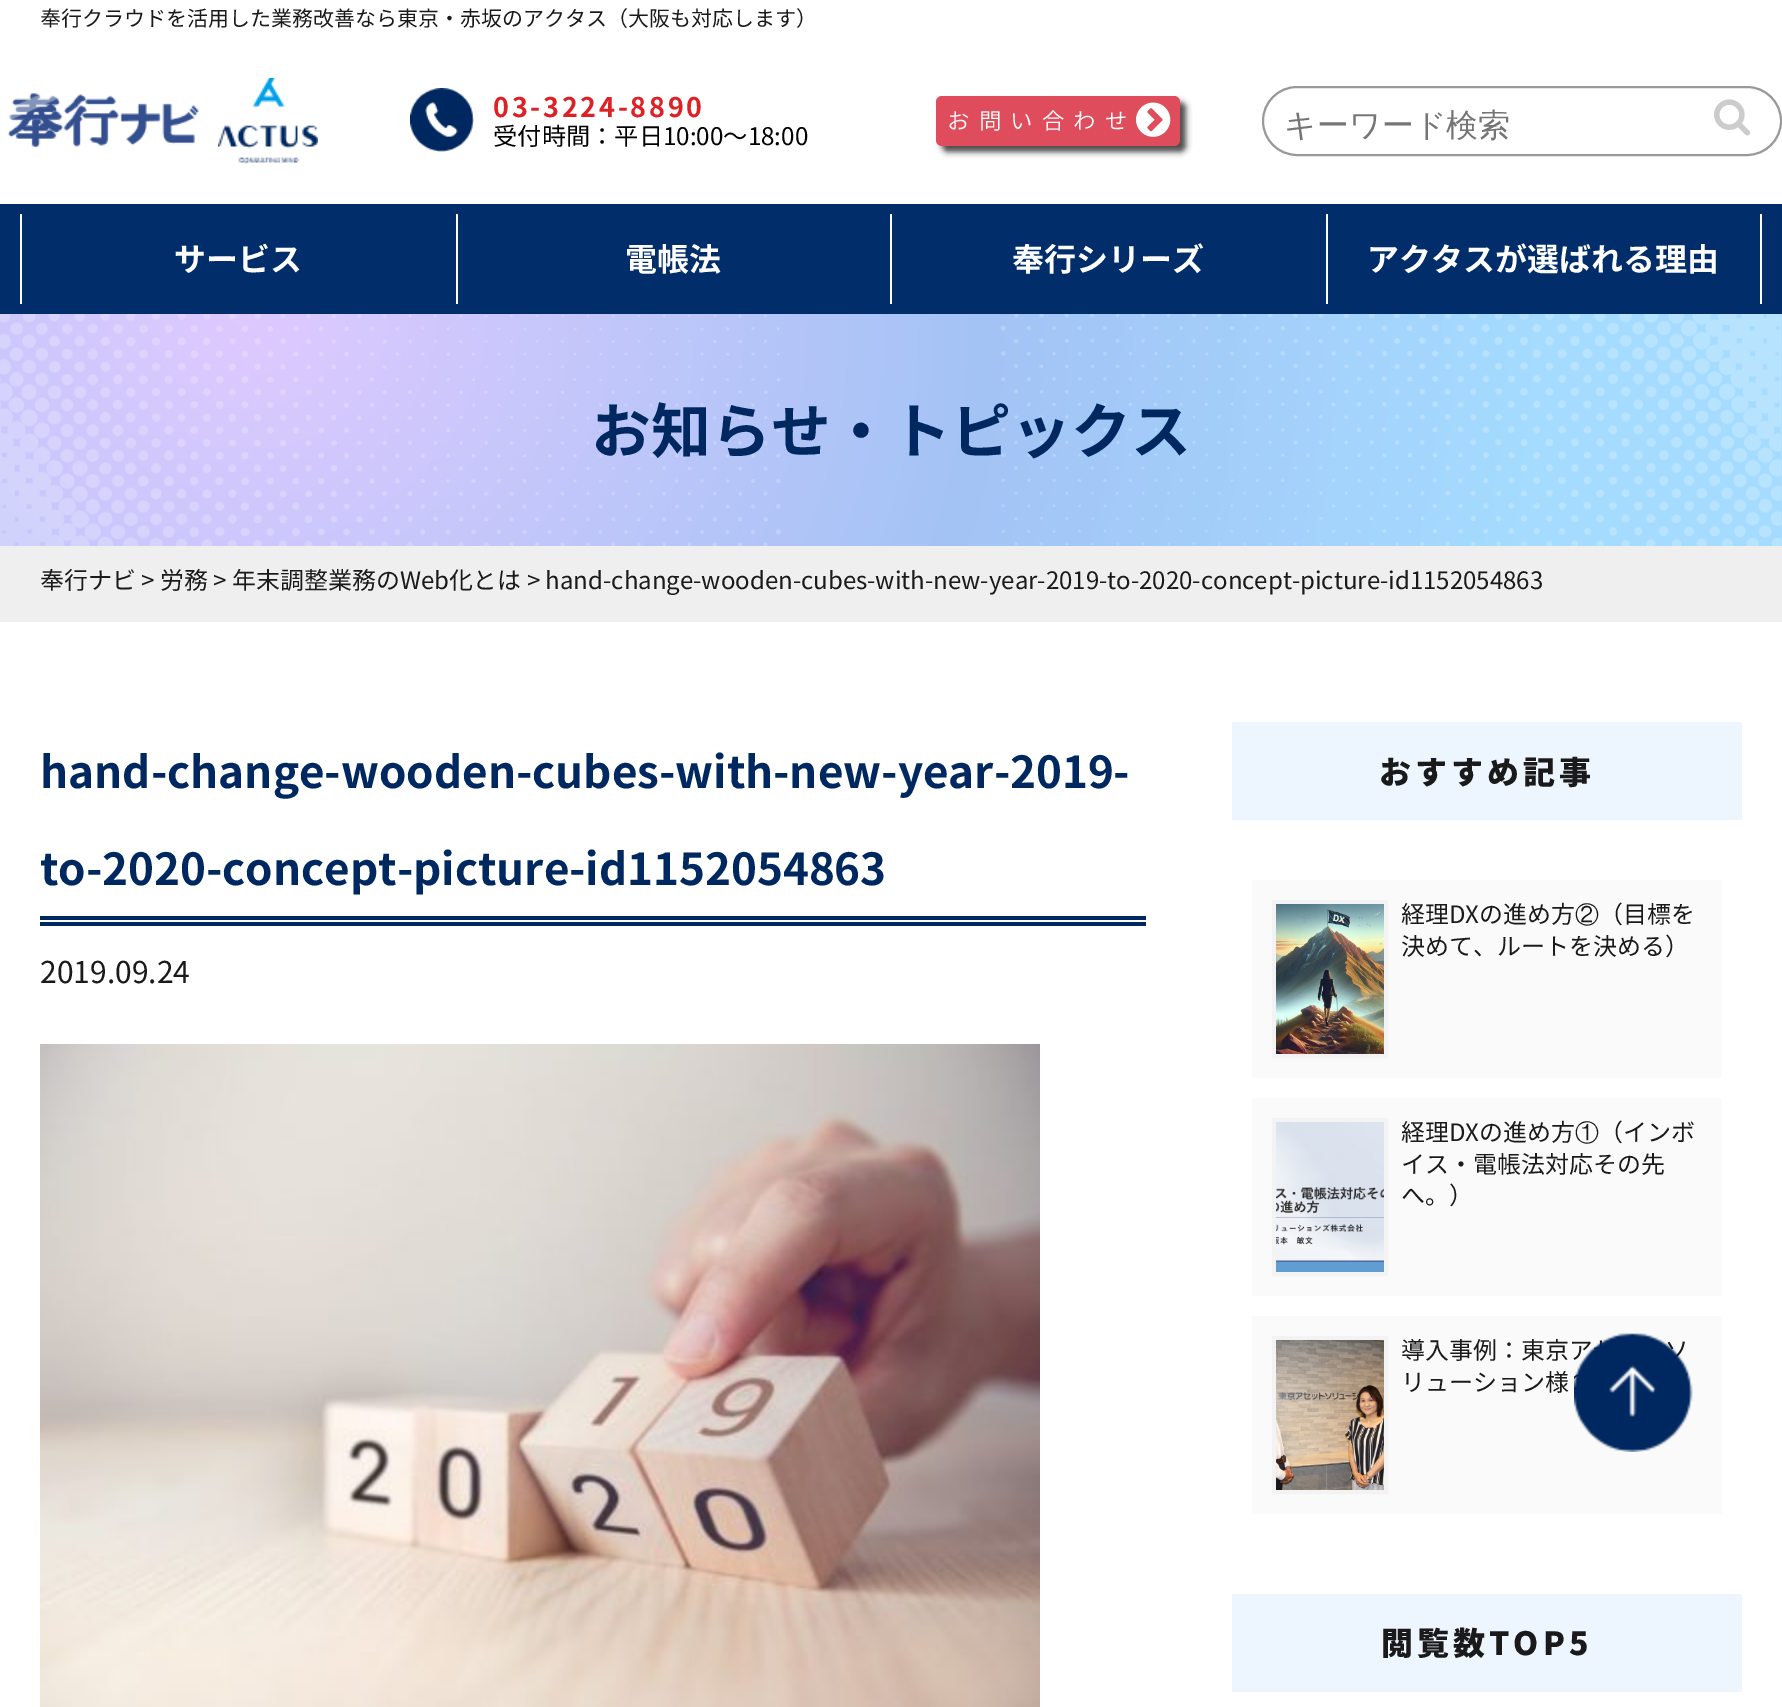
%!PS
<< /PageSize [1782 1707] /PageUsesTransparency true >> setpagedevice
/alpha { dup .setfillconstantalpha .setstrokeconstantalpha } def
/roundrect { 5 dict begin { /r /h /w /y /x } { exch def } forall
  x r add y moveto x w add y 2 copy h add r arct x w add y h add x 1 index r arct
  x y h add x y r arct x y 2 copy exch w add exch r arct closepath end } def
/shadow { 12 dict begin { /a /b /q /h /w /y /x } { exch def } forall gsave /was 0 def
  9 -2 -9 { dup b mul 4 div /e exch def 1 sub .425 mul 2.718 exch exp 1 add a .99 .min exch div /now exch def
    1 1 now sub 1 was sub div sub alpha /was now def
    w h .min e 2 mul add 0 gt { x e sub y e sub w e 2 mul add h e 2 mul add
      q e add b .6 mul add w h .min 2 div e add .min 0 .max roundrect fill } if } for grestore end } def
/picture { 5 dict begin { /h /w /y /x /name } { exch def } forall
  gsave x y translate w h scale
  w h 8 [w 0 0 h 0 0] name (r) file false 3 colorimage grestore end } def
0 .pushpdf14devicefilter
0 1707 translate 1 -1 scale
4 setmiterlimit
1 setgray
0 0 1782 1707 rectfill
/NotoSansJP-Regular [21 0 0 -21 0 0] selectfont
0.102 setgray
40 26 moveto (奉行クラウドを活用した業務改善なら東京・赤坂のアクタス（大阪も対応します）) show
(img1.rgb) 7 93 192 55 picture
(img2.rgb) 218 78 100 86 picture
(img3.rgb) 410 88 64 64 picture
/NotoSansJP-Bold [27 0 0 -27 0 0] selectfont
0.863 0.133 0.153 setrgbcolor
493 117 moveto 2.75 0 (03-3224-8890) ashow
/NotoSansJP-Regular [24.25 0 0 -24.25 0 0] selectfont
0 setgray
493 145 moveto (受付時間：平日10:00〜18:00) show
942 102 244 50 6 3 0.7 shadow
0.875 0.298 0.357 setrgbcolor
936 96 244 50 6 roundrect fill
/NotoSansJP-Light [22.5 0 0 -22.5 0 0] selectfont
1 setgray
947 129 moveto 9 0 (お問い合わせ) ashow
(img4.rgb) 1136 102 35 35 picture
0.6 setgray
2 setlinewidth
1263 87 518 68 34 roundrect stroke
/WenQuanYiZenHei-Medium [32 0 0 -32 0 0] selectfont
0.459 setgray
1284 136 moveto (キーワード検索) show
(img5.rgb) 1714 99 37 37 picture
0.004 0.176 0.42 setrgbcolor
0 204 1782 110 rectfill
1 setgray
20 214 2 90 rectfill
/NotoSansJP-Bold [32 0 0 -32 0 0] selectfont
174 271 moveto (サービス) show
456 214 2 90 rectfill
625 271 moveto (電帳法) show
890 214 2 90 rectfill
1012 271 moveto (奉行シリーズ) show
1760 214 2 90 rectfill
1326 214 2 90 rectfill
1367 271 moveto (アクタスが選ばれる理由) show
(img6.rgb) 0 314 1782 232 picture
/NotoSansJP-Bold [60 0 0 -60 0 0] selectfont
0 0.157 0.376 setrgbcolor
591 453 moveto (お知らせ・トピックス) show
0.937 setgray
0 546 1782 76 rectfill
/NotoSansJP-Regular [24 0 0 -24 0 0] selectfont
0.102 setgray
40 589 moveto (奉行ナビ > 労務 > 年末調整業務のWeb化とは > hand-change-wooden-cubes-with-new-year-2019-to-2020-concept-picture-id1152054863) show
0 0.157 0.376 setrgbcolor
40 916 1106 4 rectfill
40 922 1106 4 rectfill
/NotoSansJP-Bold [44 0 0 -44 0 0] selectfont
40 788 moveto (hand-change-wooden-cubes-with-new-year-2019-) show
40 885 moveto (to-2020-concept-picture-id1152054863) show
/NotoSansJP-Regular [30 0 0 -30 0 0] selectfont
0.102 setgray
40 983 moveto (2019.09.24) show
(img7.rgb) 40 1044 1000 663 picture
0.929 0.961 1 setrgbcolor
1232 722 510 98 rectfill
/NotoSansJP-Black [32 0 0 -32 0 0] selectfont
0.102 setgray
1379 784 moveto 4 0 (おすすめ記事) ashow
0.98 setgray
1252 880 470 198 rectfill
0.953 setgray
4 setlinewidth
1274 902 112 154 rectstroke
(img8.rgb) 1276 904 108 150 picture
/NotoSansJP-Regular [24 0 0 -24 0 0] selectfont
0.102 setgray
1401 923 moveto (経理DXの進め方) show
/WenQuanYiZenHei-Medium [24 0 0 -24 0 0] selectfont
1575 923 moveto (②) show
/NotoSansJP-Regular [24 0 0 -24 0 0] selectfont
1599 923 moveto (（目標を) show
1401 955 moveto (決めて、ルートを決める）) show
0.98 setgray
1252 1098 470 198 rectfill
0.953 setgray
1274 1120 112 154 rectstroke
(img9.rgb) 1276 1122 108 150 picture
0.102 setgray
1401 1141 moveto (経理DXの進め方) show
/WenQuanYiZenHei-Medium [24 0 0 -24 0 0] selectfont
1575 1141 moveto (①) show
/NotoSansJP-Regular [24 0 0 -24 0 0] selectfont
1599 1141 moveto (（インボ) show
1401 1173 moveto (イス・電帳法対応その先) show
1401 1204 moveto (へ。）) show
0.98 setgray
1252 1316 470 198 rectfill
0.953 setgray
1274 1338 112 154 rectstroke
(img10.rgb) 1276 1340 108 150 picture
0.102 setgray
1401 1359 moveto (導入事例：東京ア) show
1665 1359 moveto (ソ) show
1401 1391 moveto (リューション様) show
0.929 0.961 1 setrgbcolor
1232 1594 510 98 rectfill
/NotoSansJP-Black [32 0 0 -32 0 0] selectfont
0.102 setgray
1381 1655 moveto 4 0 (閲覧数TOP5) ashow
(img11.rgb) 1574 1333 119 119 picture
.poppdf14devicefilter showpage
